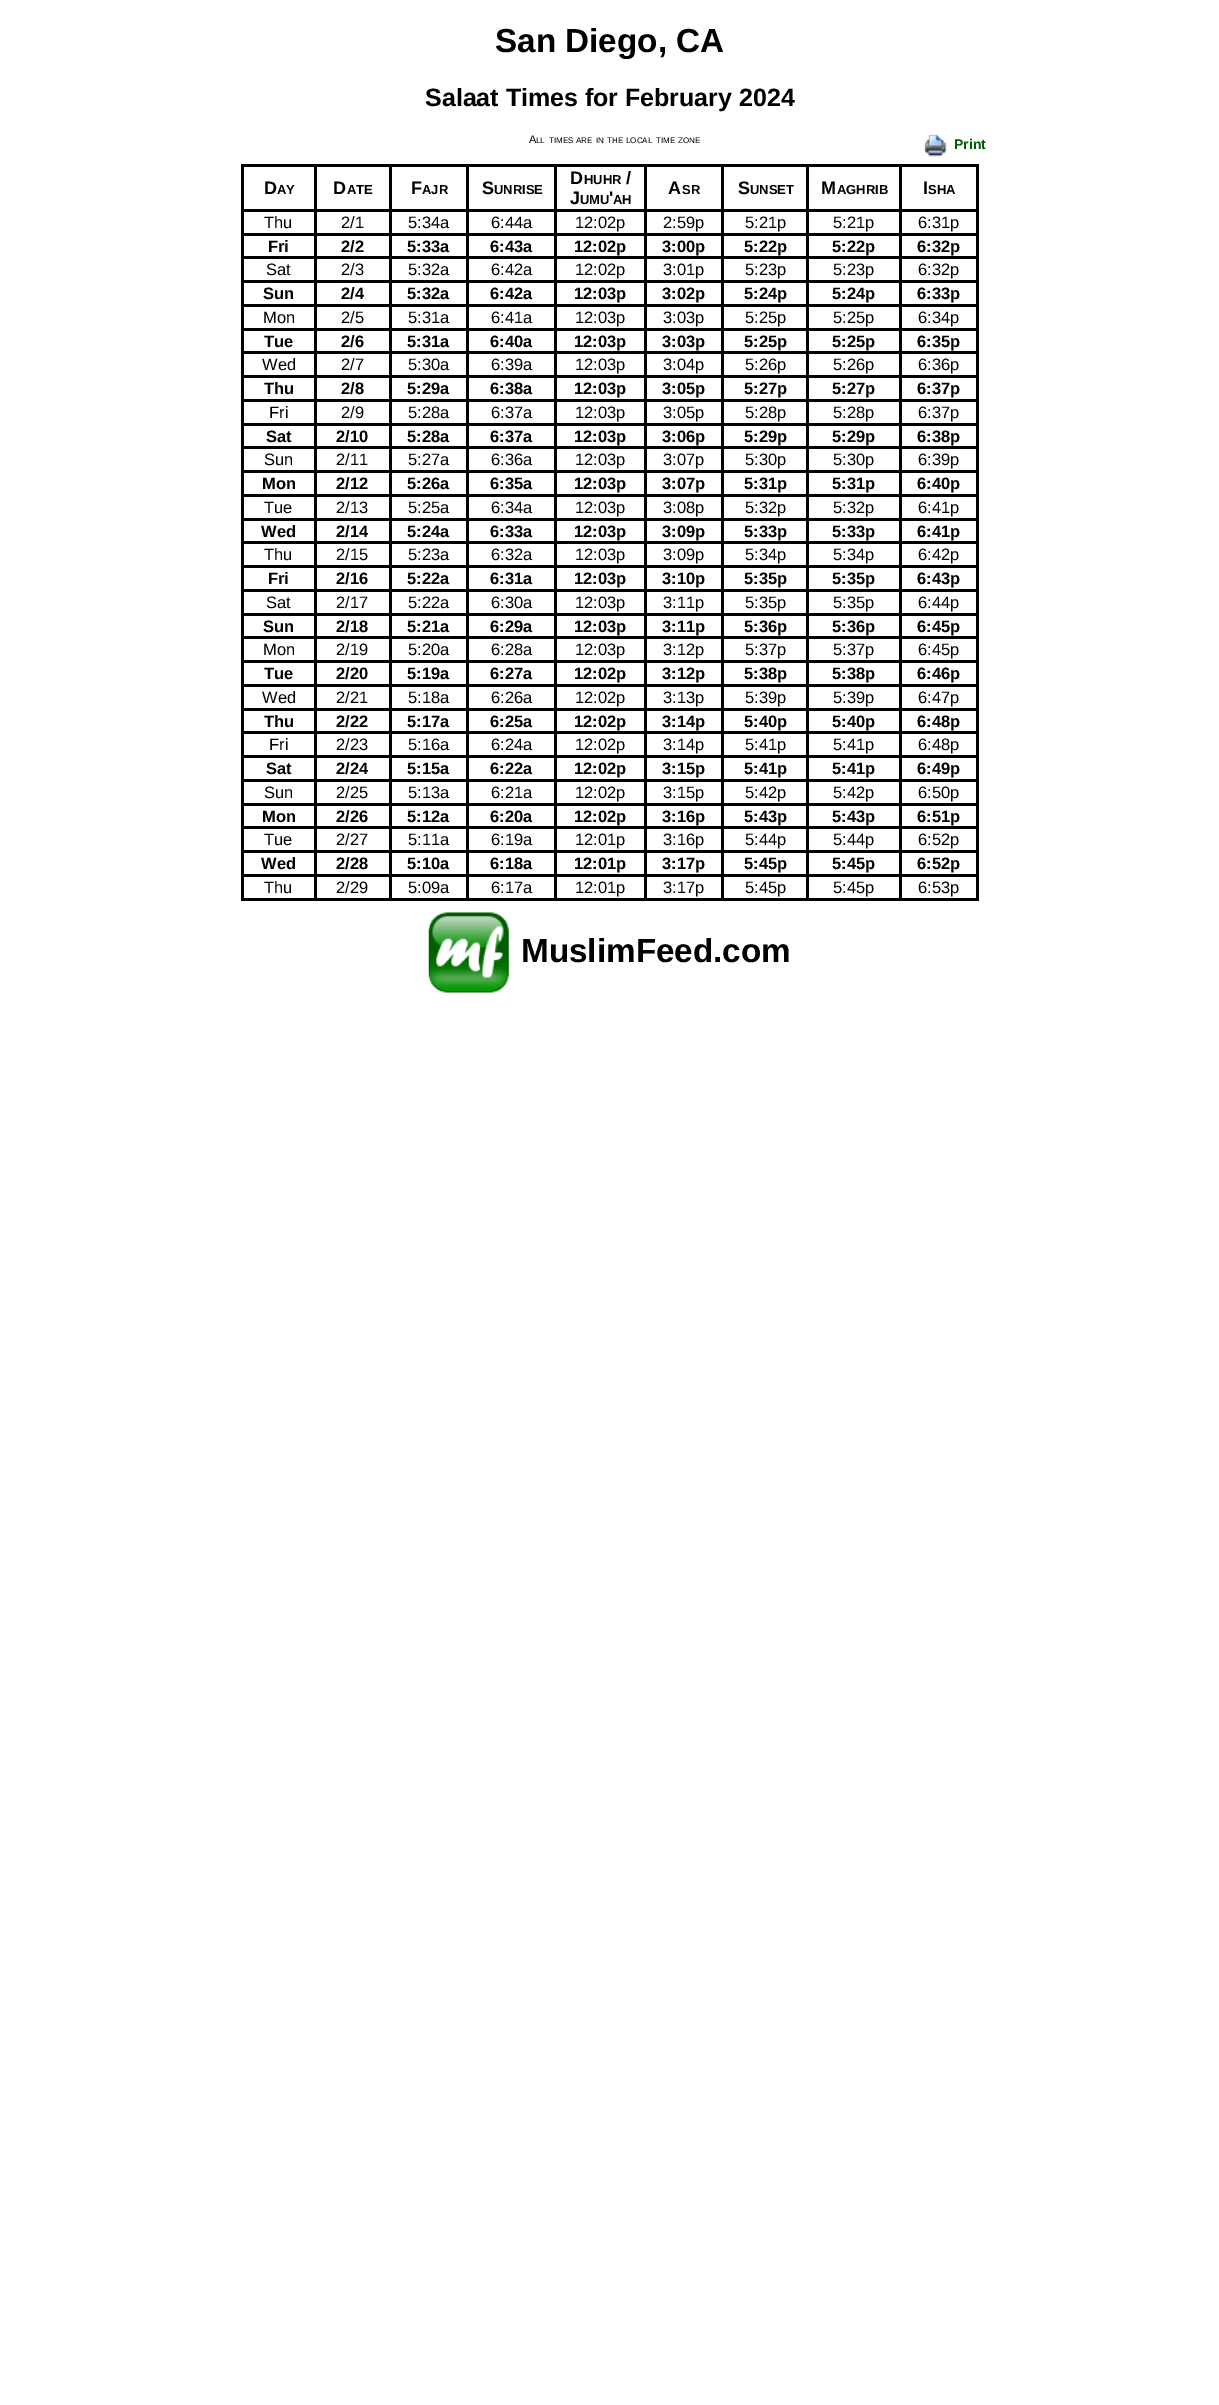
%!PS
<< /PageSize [1219 2405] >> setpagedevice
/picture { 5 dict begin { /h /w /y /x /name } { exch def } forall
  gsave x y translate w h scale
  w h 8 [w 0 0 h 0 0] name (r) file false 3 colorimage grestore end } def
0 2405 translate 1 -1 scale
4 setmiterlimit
1 setgray
0 0 1219 2405 rectfill
/LiberationSans-Bold [33.25 0 0 -33.25 0 0] selectfont
0 setgray
495 52 moveto (San Diego, CA) show
/LiberationSans-Bold [25 0 0 -25 0 0] selectfont
425 106 moveto (Salaat Times for February 2024) show
/LiberationSans-Regular [11 0 0 -11 0 0] selectfont
529 143 moveto (A) show
/LiberationSans-Regular [8 0 0 -8 0 0] selectfont
536 143 moveto (LL) show
549 143 moveto (TIMES) show
576 143 moveto (ARE) show
596 143 moveto (IN) show
607 143 moveto (THE) show
626 143 moveto (LOCAL) show
656 143 moveto (TIME) show
678 143 moveto (ZONE) show
(img1.rgb) 924 134 23 23 picture
/LiberationSans-Bold [14 0 0 -14 0 0] selectfont
0 0.369 0 setrgbcolor
954 149 moveto (Print) show
0 setgray
899 164 80 3 rectfill
899 209 80 3 rectfill
899 233 80 3 rectfill
899 256 80 3 rectfill
899 280 80 3 rectfill
899 304 80 3 rectfill
899 328 80 3 rectfill
899 351 80 3 rectfill
899 375 80 3 rectfill
899 399 80 3 rectfill
899 423 80 3 rectfill
899 446 80 3 rectfill
899 470 80 3 rectfill
899 494 80 3 rectfill
899 518 80 3 rectfill
899 541 80 3 rectfill
899 565 80 3 rectfill
899 589 80 3 rectfill
899 613 80 3 rectfill
899 636 80 3 rectfill
899 660 80 3 rectfill
899 684 80 3 rectfill
899 708 80 3 rectfill
899 731 80 3 rectfill
899 755 80 3 rectfill
899 779 80 3 rectfill
899 803 80 3 rectfill
899 826 80 3 rectfill
899 850 80 3 rectfill
899 874 80 3 rectfill
976 874 3 26 rectfill
899 898 80 3 rectfill
899 874 3 26 rectfill
806 874 95 3 rectfill
899 850 3 26 rectfill
806 850 95 3 rectfill
899 826 3 27 rectfill
806 826 95 3 rectfill
899 803 3 26 rectfill
806 803 95 3 rectfill
899 779 3 26 rectfill
806 779 95 3 rectfill
899 755 3 26 rectfill
806 755 95 3 rectfill
899 731 3 27 rectfill
806 731 95 3 rectfill
899 708 3 26 rectfill
806 708 95 3 rectfill
899 684 3 26 rectfill
806 684 95 3 rectfill
899 660 3 26 rectfill
806 660 95 3 rectfill
899 636 3 27 rectfill
806 636 95 3 rectfill
899 613 3 26 rectfill
806 613 95 3 rectfill
899 589 3 26 rectfill
806 589 95 3 rectfill
899 565 3 26 rectfill
806 565 95 3 rectfill
899 541 3 27 rectfill
806 541 95 3 rectfill
899 518 3 26 rectfill
806 518 95 3 rectfill
899 494 3 26 rectfill
806 494 95 3 rectfill
899 470 3 26 rectfill
806 470 95 3 rectfill
899 446 3 27 rectfill
806 446 95 3 rectfill
899 423 3 26 rectfill
806 423 95 3 rectfill
899 399 3 26 rectfill
806 399 95 3 rectfill
899 375 3 26 rectfill
806 375 95 3 rectfill
899 351 3 27 rectfill
806 351 95 3 rectfill
899 328 3 26 rectfill
806 328 95 3 rectfill
899 304 3 26 rectfill
806 304 95 3 rectfill
899 280 3 26 rectfill
806 280 95 3 rectfill
899 256 3 27 rectfill
806 256 95 3 rectfill
899 233 3 26 rectfill
806 233 95 3 rectfill
899 209 3 26 rectfill
806 209 95 3 rectfill
899 164 3 47 rectfill
806 164 95 3 rectfill
806 898 95 3 rectfill
806 874 3 26 rectfill
721 874 88 3 rectfill
806 850 3 26 rectfill
721 850 88 3 rectfill
806 826 3 27 rectfill
721 826 88 3 rectfill
806 803 3 26 rectfill
721 803 88 3 rectfill
806 779 3 26 rectfill
721 779 88 3 rectfill
806 755 3 26 rectfill
721 755 88 3 rectfill
806 731 3 27 rectfill
721 731 88 3 rectfill
806 708 3 26 rectfill
721 708 88 3 rectfill
806 684 3 26 rectfill
721 684 88 3 rectfill
806 660 3 26 rectfill
721 660 88 3 rectfill
806 636 3 27 rectfill
721 636 88 3 rectfill
806 613 3 26 rectfill
721 613 88 3 rectfill
806 589 3 26 rectfill
721 589 88 3 rectfill
806 565 3 26 rectfill
721 565 88 3 rectfill
806 541 3 27 rectfill
721 541 88 3 rectfill
806 518 3 26 rectfill
721 518 88 3 rectfill
806 494 3 26 rectfill
721 494 88 3 rectfill
806 470 3 26 rectfill
721 470 88 3 rectfill
806 446 3 27 rectfill
721 446 88 3 rectfill
806 423 3 26 rectfill
721 423 88 3 rectfill
806 399 3 26 rectfill
721 399 88 3 rectfill
806 375 3 26 rectfill
721 375 88 3 rectfill
806 351 3 27 rectfill
721 351 88 3 rectfill
806 328 3 26 rectfill
721 328 88 3 rectfill
806 304 3 26 rectfill
721 304 88 3 rectfill
806 280 3 26 rectfill
721 280 88 3 rectfill
806 256 3 27 rectfill
721 256 88 3 rectfill
806 233 3 26 rectfill
721 233 88 3 rectfill
806 209 3 26 rectfill
721 209 88 3 rectfill
806 164 3 47 rectfill
721 164 88 3 rectfill
721 898 88 3 rectfill
721 874 3 26 rectfill
644 874 80 3 rectfill
721 850 3 26 rectfill
644 850 80 3 rectfill
721 826 3 27 rectfill
644 826 80 3 rectfill
721 803 3 26 rectfill
644 803 80 3 rectfill
721 779 3 26 rectfill
644 779 80 3 rectfill
721 755 3 26 rectfill
644 755 80 3 rectfill
721 731 3 27 rectfill
644 731 80 3 rectfill
721 708 3 26 rectfill
644 708 80 3 rectfill
721 684 3 26 rectfill
644 684 80 3 rectfill
721 660 3 26 rectfill
644 660 80 3 rectfill
721 636 3 27 rectfill
644 636 80 3 rectfill
721 613 3 26 rectfill
644 613 80 3 rectfill
721 589 3 26 rectfill
644 589 80 3 rectfill
721 565 3 26 rectfill
644 565 80 3 rectfill
721 541 3 27 rectfill
644 541 80 3 rectfill
721 518 3 26 rectfill
644 518 80 3 rectfill
721 494 3 26 rectfill
644 494 80 3 rectfill
721 470 3 26 rectfill
644 470 80 3 rectfill
721 446 3 27 rectfill
644 446 80 3 rectfill
721 423 3 26 rectfill
644 423 80 3 rectfill
721 399 3 26 rectfill
644 399 80 3 rectfill
721 375 3 26 rectfill
644 375 80 3 rectfill
721 351 3 27 rectfill
644 351 80 3 rectfill
721 328 3 26 rectfill
644 328 80 3 rectfill
721 304 3 26 rectfill
644 304 80 3 rectfill
721 280 3 26 rectfill
644 280 80 3 rectfill
721 256 3 27 rectfill
644 256 80 3 rectfill
721 233 3 26 rectfill
644 233 80 3 rectfill
721 209 3 26 rectfill
644 209 80 3 rectfill
721 164 3 47 rectfill
644 164 80 3 rectfill
644 898 80 3 rectfill
644 874 3 26 rectfill
554 874 92 3 rectfill
644 850 3 26 rectfill
554 850 92 3 rectfill
644 826 3 27 rectfill
554 826 92 3 rectfill
644 803 3 26 rectfill
554 803 92 3 rectfill
644 779 3 26 rectfill
554 779 92 3 rectfill
644 755 3 26 rectfill
554 755 92 3 rectfill
644 731 3 27 rectfill
554 731 92 3 rectfill
644 708 3 26 rectfill
554 708 92 3 rectfill
644 684 3 26 rectfill
554 684 92 3 rectfill
644 660 3 26 rectfill
554 660 92 3 rectfill
644 636 3 27 rectfill
554 636 92 3 rectfill
644 613 3 26 rectfill
554 613 92 3 rectfill
644 589 3 26 rectfill
554 589 92 3 rectfill
644 565 3 26 rectfill
554 565 92 3 rectfill
644 541 3 27 rectfill
554 541 92 3 rectfill
644 518 3 26 rectfill
554 518 92 3 rectfill
644 494 3 26 rectfill
554 494 92 3 rectfill
644 470 3 26 rectfill
554 470 92 3 rectfill
644 446 3 27 rectfill
554 446 92 3 rectfill
644 423 3 26 rectfill
554 423 92 3 rectfill
644 399 3 26 rectfill
554 399 92 3 rectfill
644 375 3 26 rectfill
554 375 92 3 rectfill
644 351 3 27 rectfill
554 351 92 3 rectfill
644 328 3 26 rectfill
554 328 92 3 rectfill
644 304 3 26 rectfill
554 304 92 3 rectfill
644 280 3 26 rectfill
554 280 92 3 rectfill
644 256 3 27 rectfill
554 256 92 3 rectfill
644 233 3 26 rectfill
554 233 92 3 rectfill
644 209 3 26 rectfill
554 209 92 3 rectfill
644 164 3 47 rectfill
554 164 92 3 rectfill
554 898 92 3 rectfill
554 874 3 26 rectfill
466 874 90 3 rectfill
554 850 3 26 rectfill
466 850 90 3 rectfill
554 826 3 27 rectfill
466 826 90 3 rectfill
554 803 3 26 rectfill
466 803 90 3 rectfill
554 779 3 26 rectfill
466 779 90 3 rectfill
554 755 3 26 rectfill
466 755 90 3 rectfill
554 731 3 27 rectfill
466 731 90 3 rectfill
554 708 3 26 rectfill
466 708 90 3 rectfill
554 684 3 26 rectfill
466 684 90 3 rectfill
554 660 3 26 rectfill
466 660 90 3 rectfill
554 636 3 27 rectfill
466 636 90 3 rectfill
554 613 3 26 rectfill
466 613 90 3 rectfill
554 589 3 26 rectfill
466 589 90 3 rectfill
554 565 3 26 rectfill
466 565 90 3 rectfill
554 541 3 27 rectfill
466 541 90 3 rectfill
554 518 3 26 rectfill
466 518 90 3 rectfill
554 494 3 26 rectfill
466 494 90 3 rectfill
554 470 3 26 rectfill
466 470 90 3 rectfill
554 446 3 27 rectfill
466 446 90 3 rectfill
554 423 3 26 rectfill
466 423 90 3 rectfill
554 399 3 26 rectfill
466 399 90 3 rectfill
554 375 3 26 rectfill
466 375 90 3 rectfill
554 351 3 27 rectfill
466 351 90 3 rectfill
554 328 3 26 rectfill
466 328 90 3 rectfill
554 304 3 26 rectfill
466 304 90 3 rectfill
554 280 3 26 rectfill
466 280 90 3 rectfill
554 256 3 27 rectfill
466 256 90 3 rectfill
554 233 3 26 rectfill
466 233 90 3 rectfill
554 209 3 26 rectfill
466 209 90 3 rectfill
554 164 3 47 rectfill
466 164 90 3 rectfill
466 898 90 3 rectfill
466 874 3 26 rectfill
389 874 80 3 rectfill
466 850 3 26 rectfill
389 850 80 3 rectfill
466 826 3 27 rectfill
389 826 80 3 rectfill
466 803 3 26 rectfill
389 803 80 3 rectfill
466 779 3 26 rectfill
389 779 80 3 rectfill
466 755 3 26 rectfill
389 755 80 3 rectfill
466 731 3 27 rectfill
389 731 80 3 rectfill
466 708 3 26 rectfill
389 708 80 3 rectfill
466 684 3 26 rectfill
389 684 80 3 rectfill
466 660 3 26 rectfill
389 660 80 3 rectfill
466 636 3 27 rectfill
389 636 80 3 rectfill
466 613 3 26 rectfill
389 613 80 3 rectfill
466 589 3 26 rectfill
389 589 80 3 rectfill
466 565 3 26 rectfill
389 565 80 3 rectfill
466 541 3 27 rectfill
389 541 80 3 rectfill
466 518 3 26 rectfill
389 518 80 3 rectfill
466 494 3 26 rectfill
389 494 80 3 rectfill
466 470 3 26 rectfill
389 470 80 3 rectfill
466 446 3 27 rectfill
389 446 80 3 rectfill
466 423 3 26 rectfill
389 423 80 3 rectfill
466 399 3 26 rectfill
389 399 80 3 rectfill
466 375 3 26 rectfill
389 375 80 3 rectfill
466 351 3 27 rectfill
389 351 80 3 rectfill
466 328 3 26 rectfill
389 328 80 3 rectfill
466 304 3 26 rectfill
389 304 80 3 rectfill
466 280 3 26 rectfill
389 280 80 3 rectfill
466 256 3 27 rectfill
389 256 80 3 rectfill
466 233 3 26 rectfill
389 233 80 3 rectfill
466 209 3 26 rectfill
389 209 80 3 rectfill
466 164 3 47 rectfill
389 164 80 3 rectfill
389 898 80 3 rectfill
389 874 3 26 rectfill
314 874 77 3 rectfill
389 850 3 26 rectfill
314 850 77 3 rectfill
389 826 3 27 rectfill
314 826 77 3 rectfill
389 803 3 26 rectfill
314 803 77 3 rectfill
389 779 3 26 rectfill
314 779 77 3 rectfill
389 755 3 26 rectfill
314 755 77 3 rectfill
389 731 3 27 rectfill
314 731 77 3 rectfill
389 708 3 26 rectfill
314 708 77 3 rectfill
389 684 3 26 rectfill
314 684 77 3 rectfill
389 660 3 26 rectfill
314 660 77 3 rectfill
389 636 3 27 rectfill
314 636 77 3 rectfill
389 613 3 26 rectfill
314 613 77 3 rectfill
389 589 3 26 rectfill
314 589 77 3 rectfill
389 565 3 26 rectfill
314 565 77 3 rectfill
389 541 3 27 rectfill
314 541 77 3 rectfill
389 518 3 26 rectfill
314 518 77 3 rectfill
389 494 3 26 rectfill
314 494 77 3 rectfill
389 470 3 26 rectfill
314 470 77 3 rectfill
389 446 3 27 rectfill
314 446 77 3 rectfill
389 423 3 26 rectfill
314 423 77 3 rectfill
389 399 3 26 rectfill
314 399 77 3 rectfill
389 375 3 26 rectfill
314 375 77 3 rectfill
389 351 3 27 rectfill
314 351 77 3 rectfill
389 328 3 26 rectfill
314 328 77 3 rectfill
389 304 3 26 rectfill
314 304 77 3 rectfill
389 280 3 26 rectfill
314 280 77 3 rectfill
389 256 3 27 rectfill
314 256 77 3 rectfill
389 233 3 26 rectfill
314 233 77 3 rectfill
389 209 3 26 rectfill
314 209 77 3 rectfill
389 164 3 47 rectfill
314 164 77 3 rectfill
314 898 77 3 rectfill
314 874 3 26 rectfill
241 874 75 3 rectfill
314 850 3 26 rectfill
241 850 75 3 rectfill
314 826 3 27 rectfill
241 826 75 3 rectfill
314 803 3 26 rectfill
241 803 75 3 rectfill
314 779 3 26 rectfill
241 779 75 3 rectfill
314 755 3 26 rectfill
241 755 75 3 rectfill
314 731 3 27 rectfill
241 731 75 3 rectfill
314 708 3 26 rectfill
241 708 75 3 rectfill
314 684 3 26 rectfill
241 684 75 3 rectfill
314 660 3 26 rectfill
241 660 75 3 rectfill
314 636 3 27 rectfill
241 636 75 3 rectfill
314 613 3 26 rectfill
241 613 75 3 rectfill
314 589 3 26 rectfill
241 589 75 3 rectfill
314 565 3 26 rectfill
241 565 75 3 rectfill
314 541 3 27 rectfill
241 541 75 3 rectfill
314 518 3 26 rectfill
241 518 75 3 rectfill
314 494 3 26 rectfill
241 494 75 3 rectfill
314 470 3 26 rectfill
241 470 75 3 rectfill
314 446 3 27 rectfill
241 446 75 3 rectfill
314 423 3 26 rectfill
241 423 75 3 rectfill
314 399 3 26 rectfill
241 399 75 3 rectfill
314 375 3 26 rectfill
241 375 75 3 rectfill
314 351 3 27 rectfill
241 351 75 3 rectfill
314 328 3 26 rectfill
241 328 75 3 rectfill
314 304 3 26 rectfill
241 304 75 3 rectfill
314 280 3 26 rectfill
241 280 75 3 rectfill
314 256 3 27 rectfill
241 256 75 3 rectfill
314 233 3 26 rectfill
241 233 75 3 rectfill
314 209 3 26 rectfill
241 209 75 3 rectfill
314 164 3 47 rectfill
241 164 75 3 rectfill
241 898 75 3 rectfill
241 874 3 26 rectfill
241 850 3 26 rectfill
241 826 3 27 rectfill
241 803 3 26 rectfill
241 779 3 26 rectfill
241 755 3 26 rectfill
241 731 3 27 rectfill
241 708 3 26 rectfill
241 684 3 26 rectfill
241 660 3 26 rectfill
241 636 3 27 rectfill
241 613 3 26 rectfill
241 589 3 26 rectfill
241 565 3 26 rectfill
241 541 3 27 rectfill
241 518 3 26 rectfill
241 494 3 26 rectfill
241 470 3 26 rectfill
241 446 3 27 rectfill
241 423 3 26 rectfill
241 399 3 26 rectfill
241 375 3 26 rectfill
241 351 3 27 rectfill
241 328 3 26 rectfill
241 304 3 26 rectfill
241 280 3 26 rectfill
241 256 3 27 rectfill
241 233 3 26 rectfill
241 209 3 26 rectfill
241 164 3 47 rectfill
/LiberationSans-Bold [18 0 0 -18 0 0] selectfont
264 194 moveto (D) show
/LiberationSans-Bold [13 0 0 -13 0 0] selectfont
277 194 moveto (AY) show
/LiberationSans-Bold [18 0 0 -18 0 0] selectfont
333 194 moveto (D) show
/LiberationSans-Bold [13 0 0 -13 0 0] selectfont
347 194 moveto (ATE) show
/LiberationSans-Bold [18 0 0 -18 0 0] selectfont
411 194 moveto (F) show
/LiberationSans-Bold [13 0 0 -13 0 0] selectfont
422 194 moveto (AJR) show
/LiberationSans-Bold [18 0 0 -18 0 0] selectfont
482 194 moveto (S) show
/LiberationSans-Bold [13 0 0 -13 0 0] selectfont
494 194 moveto (UNRISE) show
/LiberationSans-Bold [18 0 0 -18 0 0] selectfont
570 184 moveto (D) show
/LiberationSans-Bold [13 0 0 -13 0 0] selectfont
584 184 moveto (HUHR) show
/LiberationSans-Bold [18 0 0 -18 0 0] selectfont
626 184 moveto (/) show
570 204 moveto (J) show
609 204 moveto (') show
/LiberationSans-Bold [13 0 0 -13 0 0] selectfont
580 204 moveto (UMU) show
613 204 moveto (AH) show
/LiberationSans-Bold [18 0 0 -18 0 0] selectfont
668 194 moveto (A) show
/LiberationSans-Bold [13 0 0 -13 0 0] selectfont
682 194 moveto (SR) show
/LiberationSans-Bold [18 0 0 -18 0 0] selectfont
738 194 moveto (S) show
/LiberationSans-Bold [13 0 0 -13 0 0] selectfont
750 194 moveto (UNSET) show
/LiberationSans-Bold [18 0 0 -18 0 0] selectfont
821 194 moveto (M) show
/LiberationSans-Bold [13 0 0 -13 0 0] selectfont
837 194 moveto (AGHRIB) show
976 850 3 26 rectfill
976 826 3 27 rectfill
976 803 3 26 rectfill
976 779 3 26 rectfill
976 755 3 26 rectfill
976 731 3 27 rectfill
976 708 3 26 rectfill
976 684 3 26 rectfill
976 660 3 26 rectfill
976 636 3 27 rectfill
976 613 3 26 rectfill
976 589 3 26 rectfill
976 565 3 26 rectfill
976 541 3 27 rectfill
976 518 3 26 rectfill
976 494 3 26 rectfill
976 470 3 26 rectfill
976 446 3 27 rectfill
976 423 3 26 rectfill
976 399 3 26 rectfill
976 375 3 26 rectfill
976 351 3 27 rectfill
976 328 3 26 rectfill
976 304 3 26 rectfill
976 280 3 26 rectfill
976 256 3 27 rectfill
976 233 3 26 rectfill
976 209 3 26 rectfill
976 164 3 47 rectfill
/LiberationSans-Bold [18 0 0 -18 0 0] selectfont
923 194 moveto (I) show
/LiberationSans-Bold [13 0 0 -13 0 0] selectfont
928 194 moveto (SHA) show
/LiberationSans-Regular [16.5 0 0 -16.5 0 0] selectfont
264 228 moveto (Thu) show
341 228 moveto (2/1) show
408 228 moveto (5:34a) show
491 228 moveto (6:44a) show
575 228 moveto (12:02p) show
663 228 moveto (2:59p) show
745 228 moveto (5:21p) show
833 228 moveto (5:21p) show
918 228 moveto (6:31p) show
/LiberationSans-Bold [16.5 0 0 -16.5 0 0] selectfont
268 252 moveto (Fri) show
341 252 moveto (2/2) show
407 252 moveto (5:33a) show
490 252 moveto (6:43a) show
574 252 moveto (12:02p) show
662 252 moveto (3:00p) show
744 252 moveto (5:22p) show
832 252 moveto (5:22p) show
917 252 moveto (6:32p) show
/LiberationSans-Regular [16.5 0 0 -16.5 0 0] selectfont
266 275 moveto (Sat) show
341 275 moveto (2/3) show
408 275 moveto (5:32a) show
491 275 moveto (6:42a) show
575 275 moveto (12:02p) show
663 275 moveto (3:01p) show
745 275 moveto (5:23p) show
833 275 moveto (5:23p) show
918 275 moveto (6:32p) show
/LiberationSans-Bold [16.5 0 0 -16.5 0 0] selectfont
263 299 moveto (Sun) show
341 299 moveto (2/4) show
407 299 moveto (5:32a) show
490 299 moveto (6:42a) show
574 299 moveto (12:03p) show
662 299 moveto (3:02p) show
744 299 moveto (5:24p) show
832 299 moveto (5:24p) show
917 299 moveto (6:33p) show
/LiberationSans-Regular [16.5 0 0 -16.5 0 0] selectfont
263 323 moveto (Mon) show
341 323 moveto (2/5) show
408 323 moveto (5:31a) show
491 323 moveto (6:41a) show
575 323 moveto (12:03p) show
663 323 moveto (3:03p) show
745 323 moveto (5:25p) show
833 323 moveto (5:25p) show
918 323 moveto (6:34p) show
/LiberationSans-Bold [16.5 0 0 -16.5 0 0] selectfont
264 347 moveto (Tue) show
341 347 moveto (2/6) show
407 347 moveto (5:31a) show
490 347 moveto (6:40a) show
574 347 moveto (12:03p) show
662 347 moveto (3:03p) show
744 347 moveto (5:25p) show
832 347 moveto (5:25p) show
917 347 moveto (6:35p) show
/LiberationSans-Regular [16.5 0 0 -16.5 0 0] selectfont
262 370 moveto (Wed) show
341 370 moveto (2/7) show
408 370 moveto (5:30a) show
491 370 moveto (6:39a) show
575 370 moveto (12:03p) show
663 370 moveto (3:04p) show
745 370 moveto (5:26p) show
833 370 moveto (5:26p) show
918 370 moveto (6:36p) show
/LiberationSans-Bold [16.5 0 0 -16.5 0 0] selectfont
264 394 moveto (Thu) show
341 394 moveto (2/8) show
407 394 moveto (5:29a) show
490 394 moveto (6:38a) show
574 394 moveto (12:03p) show
662 394 moveto (3:05p) show
744 394 moveto (5:27p) show
832 394 moveto (5:27p) show
917 394 moveto (6:37p) show
/LiberationSans-Regular [16.5 0 0 -16.5 0 0] selectfont
269 418 moveto (Fri) show
341 418 moveto (2/9) show
408 418 moveto (5:28a) show
491 418 moveto (6:37a) show
575 418 moveto (12:03p) show
663 418 moveto (3:05p) show
745 418 moveto (5:28p) show
833 418 moveto (5:28p) show
918 418 moveto (6:37p) show
/LiberationSans-Bold [16.5 0 0 -16.5 0 0] selectfont
266 442 moveto (Sat) show
336 442 moveto (2/10) show
407 442 moveto (5:28a) show
490 442 moveto (6:37a) show
574 442 moveto (12:03p) show
662 442 moveto (3:06p) show
744 442 moveto (5:29p) show
832 442 moveto (5:29p) show
917 442 moveto (6:38p) show
/LiberationSans-Regular [16.5 0 0 -16.5 0 0] selectfont
264 465 moveto (Sun) show
336 465 moveto (2/11) show
408 465 moveto (5:27a) show
491 465 moveto (6:36a) show
575 465 moveto (12:03p) show
663 465 moveto (3:07p) show
745 465 moveto (5:30p) show
833 465 moveto (5:30p) show
918 465 moveto (6:39p) show
/LiberationSans-Bold [16.5 0 0 -16.5 0 0] selectfont
262 489 moveto (Mon) show
336 489 moveto (2/12) show
407 489 moveto (5:26a) show
490 489 moveto (6:35a) show
574 489 moveto (12:03p) show
662 489 moveto (3:07p) show
744 489 moveto (5:31p) show
832 489 moveto (5:31p) show
917 489 moveto (6:40p) show
/LiberationSans-Regular [16.5 0 0 -16.5 0 0] selectfont
264 513 moveto (Tue) show
336 513 moveto (2/13) show
408 513 moveto (5:25a) show
491 513 moveto (6:34a) show
575 513 moveto (12:03p) show
663 513 moveto (3:08p) show
745 513 moveto (5:32p) show
833 513 moveto (5:32p) show
918 513 moveto (6:41p) show
/LiberationSans-Bold [16.5 0 0 -16.5 0 0] selectfont
261 537 moveto (Wed) show
336 537 moveto (2/14) show
407 537 moveto (5:24a) show
490 537 moveto (6:33a) show
574 537 moveto (12:03p) show
662 537 moveto (3:09p) show
744 537 moveto (5:33p) show
832 537 moveto (5:33p) show
917 537 moveto (6:41p) show
/LiberationSans-Regular [16.5 0 0 -16.5 0 0] selectfont
264 560 moveto (Thu) show
336 560 moveto (2/15) show
408 560 moveto (5:23a) show
491 560 moveto (6:32a) show
575 560 moveto (12:03p) show
663 560 moveto (3:09p) show
745 560 moveto (5:34p) show
833 560 moveto (5:34p) show
918 560 moveto (6:42p) show
/LiberationSans-Bold [16.5 0 0 -16.5 0 0] selectfont
268 584 moveto (Fri) show
336 584 moveto (2/16) show
407 584 moveto (5:22a) show
490 584 moveto (6:31a) show
574 584 moveto (12:03p) show
662 584 moveto (3:10p) show
744 584 moveto (5:35p) show
832 584 moveto (5:35p) show
917 584 moveto (6:43p) show
/LiberationSans-Regular [16.5 0 0 -16.5 0 0] selectfont
266 608 moveto (Sat) show
336 608 moveto (2/17) show
408 608 moveto (5:22a) show
491 608 moveto (6:30a) show
575 608 moveto (12:03p) show
663 608 moveto (3:11p) show
745 608 moveto (5:35p) show
833 608 moveto (5:35p) show
918 608 moveto (6:44p) show
/LiberationSans-Bold [16.5 0 0 -16.5 0 0] selectfont
263 632 moveto (Sun) show
336 632 moveto (2/18) show
407 632 moveto (5:21a) show
490 632 moveto (6:29a) show
574 632 moveto (12:03p) show
662 632 moveto (3:11p) show
744 632 moveto (5:36p) show
832 632 moveto (5:36p) show
917 632 moveto (6:45p) show
/LiberationSans-Regular [16.5 0 0 -16.5 0 0] selectfont
263 655 moveto (Mon) show
336 655 moveto (2/19) show
408 655 moveto (5:20a) show
491 655 moveto (6:28a) show
575 655 moveto (12:03p) show
663 655 moveto (3:12p) show
745 655 moveto (5:37p) show
833 655 moveto (5:37p) show
918 655 moveto (6:45p) show
/LiberationSans-Bold [16.5 0 0 -16.5 0 0] selectfont
264 679 moveto (Tue) show
336 679 moveto (2/20) show
407 679 moveto (5:19a) show
490 679 moveto (6:27a) show
574 679 moveto (12:02p) show
662 679 moveto (3:12p) show
744 679 moveto (5:38p) show
832 679 moveto (5:38p) show
917 679 moveto (6:46p) show
/LiberationSans-Regular [16.5 0 0 -16.5 0 0] selectfont
262 703 moveto (Wed) show
336 703 moveto (2/21) show
408 703 moveto (5:18a) show
491 703 moveto (6:26a) show
575 703 moveto (12:02p) show
663 703 moveto (3:13p) show
745 703 moveto (5:39p) show
833 703 moveto (5:39p) show
918 703 moveto (6:47p) show
/LiberationSans-Bold [16.5 0 0 -16.5 0 0] selectfont
264 727 moveto (Thu) show
336 727 moveto (2/22) show
407 727 moveto (5:17a) show
490 727 moveto (6:25a) show
574 727 moveto (12:02p) show
662 727 moveto (3:14p) show
744 727 moveto (5:40p) show
832 727 moveto (5:40p) show
917 727 moveto (6:48p) show
/LiberationSans-Regular [16.5 0 0 -16.5 0 0] selectfont
269 750 moveto (Fri) show
336 750 moveto (2/23) show
408 750 moveto (5:16a) show
491 750 moveto (6:24a) show
575 750 moveto (12:02p) show
663 750 moveto (3:14p) show
745 750 moveto (5:41p) show
833 750 moveto (5:41p) show
918 750 moveto (6:48p) show
/LiberationSans-Bold [16.5 0 0 -16.5 0 0] selectfont
266 774 moveto (Sat) show
336 774 moveto (2/24) show
407 774 moveto (5:15a) show
490 774 moveto (6:22a) show
574 774 moveto (12:02p) show
662 774 moveto (3:15p) show
744 774 moveto (5:41p) show
832 774 moveto (5:41p) show
917 774 moveto (6:49p) show
/LiberationSans-Regular [16.5 0 0 -16.5 0 0] selectfont
264 798 moveto (Sun) show
336 798 moveto (2/25) show
408 798 moveto (5:13a) show
491 798 moveto (6:21a) show
575 798 moveto (12:02p) show
663 798 moveto (3:15p) show
745 798 moveto (5:42p) show
833 798 moveto (5:42p) show
918 798 moveto (6:50p) show
/LiberationSans-Bold [16.5 0 0 -16.5 0 0] selectfont
262 822 moveto (Mon) show
336 822 moveto (2/26) show
407 822 moveto (5:12a) show
490 822 moveto (6:20a) show
574 822 moveto (12:02p) show
662 822 moveto (3:16p) show
744 822 moveto (5:43p) show
832 822 moveto (5:43p) show
917 822 moveto (6:51p) show
/LiberationSans-Regular [16.5 0 0 -16.5 0 0] selectfont
264 845 moveto (Tue) show
336 845 moveto (2/27) show
408 845 moveto (5:11a) show
491 845 moveto (6:19a) show
575 845 moveto (12:01p) show
663 845 moveto (3:16p) show
745 845 moveto (5:44p) show
833 845 moveto (5:44p) show
918 845 moveto (6:52p) show
/LiberationSans-Bold [16.5 0 0 -16.5 0 0] selectfont
261 869 moveto (Wed) show
336 869 moveto (2/28) show
407 869 moveto (5:10a) show
490 869 moveto (6:18a) show
574 869 moveto (12:01p) show
662 869 moveto (3:17p) show
744 869 moveto (5:45p) show
832 869 moveto (5:45p) show
917 869 moveto (6:52p) show
/LiberationSans-Regular [16.5 0 0 -16.5 0 0] selectfont
264 893 moveto (Thu) show
336 893 moveto (2/29) show
408 893 moveto (5:09a) show
491 893 moveto (6:17a) show
575 893 moveto (12:01p) show
663 893 moveto (3:17p) show
745 893 moveto (5:45p) show
833 893 moveto (5:45p) show
918 893 moveto (6:53p) show
(img2.rgb) 428 912 81 81 picture
/LiberationSans-Bold [33.25 0 0 -33.25 0 0] selectfont
521 962 moveto (MuslimFeed.com) show
showpage
